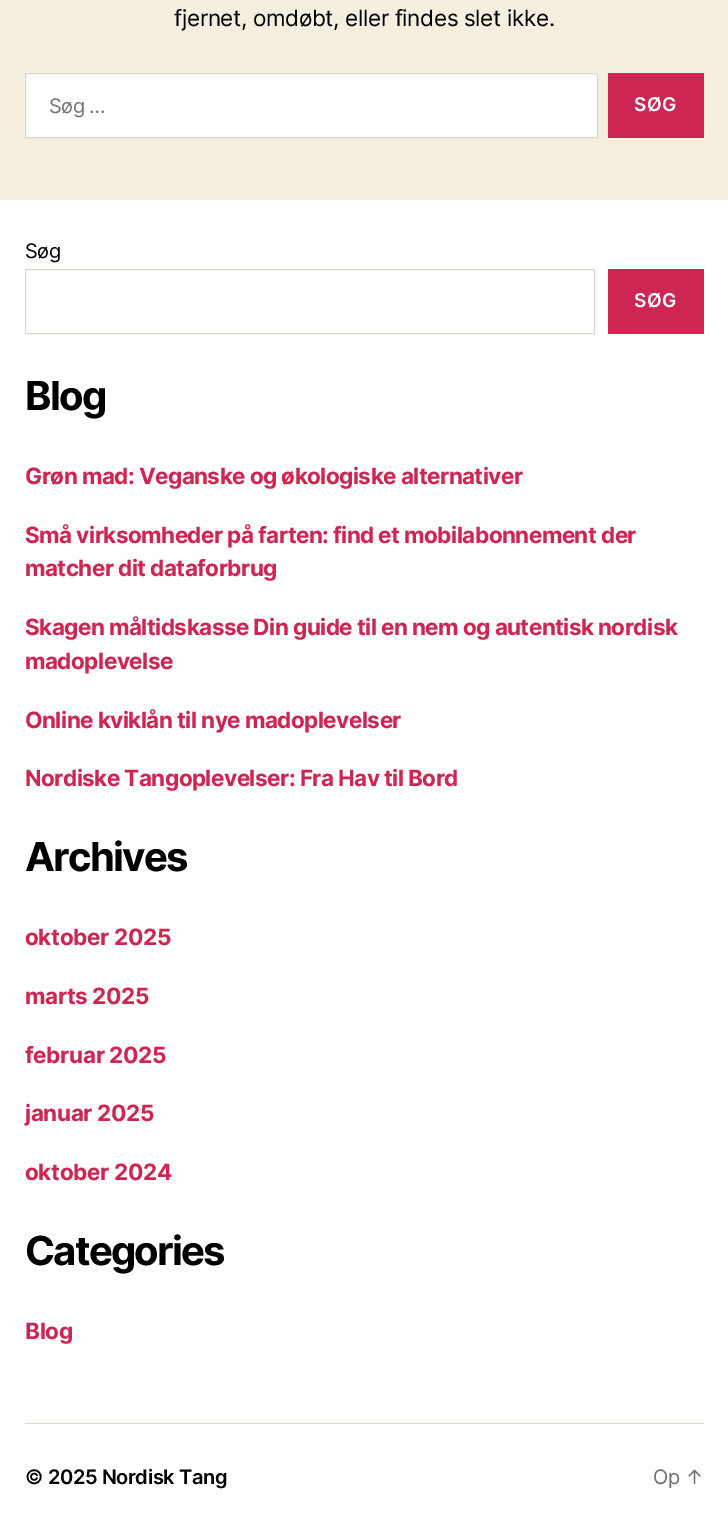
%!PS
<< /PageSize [728 1518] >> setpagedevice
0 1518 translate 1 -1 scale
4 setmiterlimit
0.961 0.937 0.878 setrgbcolor
0 0 728 1518 rectfill
/Inter-Regular [22.5 0 0 -22.5 0 0] selectfont
0 setgray
174 26 moveto -0.35 0 (fjernet, omdøbt, eller findes slet ikke.) ashow
1 setgray
newpath 25.5 73.5 moveto 597.5 73.5 lineto 597.5 137.5 lineto 25.5 137.5 lineto closepath gsave fill grestore
0.863 0.843 0.792 setrgbcolor
stroke
/Inter-Regular [20 0 0 -20 0 0] selectfont
0.459 setgray
49 113 moveto -0.5 0 (Søg …) ashow
0.804 0.149 0.325 setrgbcolor
608 73 96 65 rectfill
/Inter-SemiBold [19 0 0 -19 0 0] selectfont
1 setgray
634 111 moveto 0.5 0 (SØG) ashow
0 200 728 1318 rectfill
0.863 0.843 0.792 setrgbcolor
25 1423 679 1 rectfill
/Inter-Regular [20 0 0 -20 0 0] selectfont
0 setgray
25 258 moveto -0.35 0 (Søg) ashow
0.863 0.843 0.792 setrgbcolor
25.5 269.5 569 64 rectstroke
0.804 0.149 0.325 setrgbcolor
608 269 96 65 rectfill
/Inter-SemiBold [19 0 0 -19 0 0] selectfont
1 setgray
634 307 moveto 0.5 0 (SØG) ashow
/Inter-Bold [40 0 0 -40 0 0] selectfont
0 setgray
25 410 moveto -1.75 0 (Blog) ashow
/Inter-Bold [22.5 0 0 -22.5 0 0] selectfont
0.804 0.149 0.325 setrgbcolor
25 484 moveto -0.55 0 (Grøn mad: Veganske og økologiske alternativer) ashow
25 543 moveto -0.55 0 (Små virksomheder på farten: find et mobilabonnement der) ashow
25 576 moveto -0.55 0 (matcher dit dataforbrug) ashow
25 635 moveto -0.55 0 (Skagen måltidskasse Din guide til en nem og autentisk nordisk) ashow
25 669 moveto -0.55 0 (madoplevelse) ashow
25 728 moveto -0.55 0 (Online kviklån til nye madoplevelser) ashow
25 786 moveto -0.55 0 (Nordiske Tangoplevelser: Fra Hav til Bord) ashow
/Inter-Bold [40 0 0 -40 0 0] selectfont
0 setgray
25 871 moveto -1.75 0 (Archives) ashow
/Inter-Bold [22.5 0 0 -22.5 0 0] selectfont
0.804 0.149 0.325 setrgbcolor
25 945 moveto -0.35 0 (oktober 2025) ashow
25 1004 moveto -0.35 0 (marts 2025) ashow
25 1063 moveto -0.35 0 (februar 2025) ashow
25 1121 moveto -0.35 0 (januar 2025) ashow
25 1180 moveto -0.35 0 (oktober 2024) ashow
/Inter-Bold [40 0 0 -40 0 0] selectfont
0 setgray
25 1265 moveto -1.75 0 (Categories) ashow
/Inter-Bold [22.5 0 0 -22.5 0 0] selectfont
0.804 0.149 0.325 setrgbcolor
25 1339 moveto -0.35 0 (Blog) ashow
/Inter-SemiBold [20 0 0 -20 0 0] selectfont
0 setgray
25 1484 moveto -0.35 0 (© 2025 Nordisk Tang) ashow
/Inter-Regular [20 0 0 -20 0 0] selectfont
0.427 setgray
653 1484 moveto -0.35 0 (Op ↑) ashow
showpage
